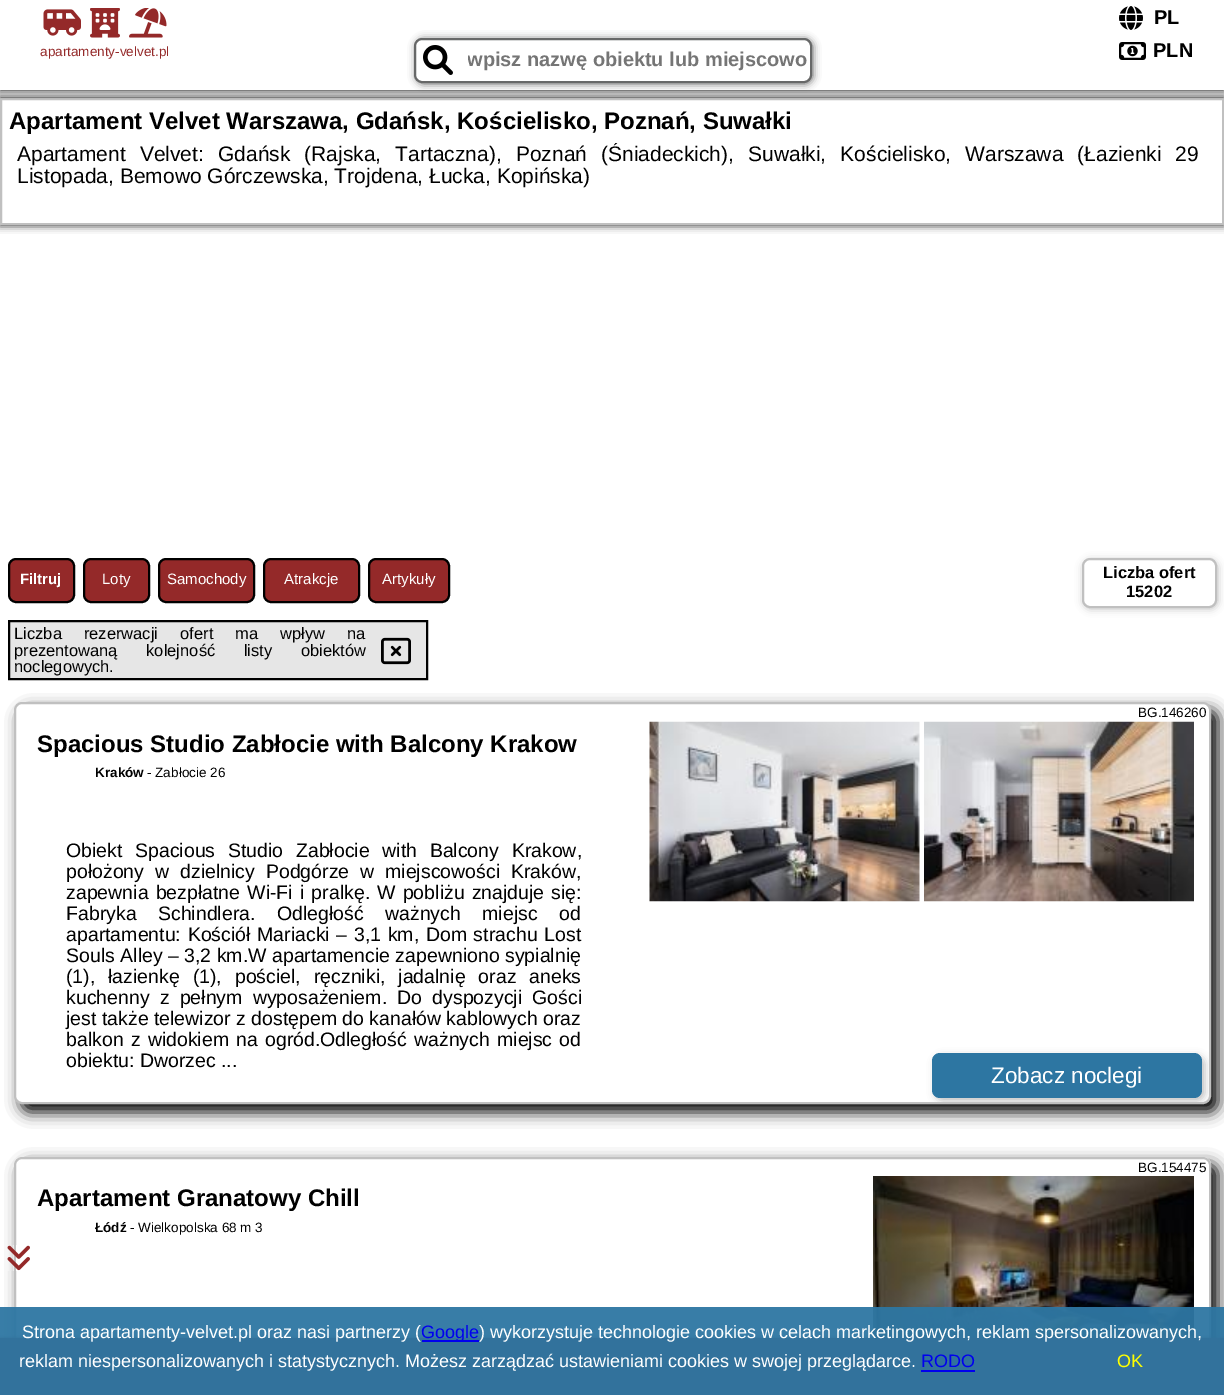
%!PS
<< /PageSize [1224 1395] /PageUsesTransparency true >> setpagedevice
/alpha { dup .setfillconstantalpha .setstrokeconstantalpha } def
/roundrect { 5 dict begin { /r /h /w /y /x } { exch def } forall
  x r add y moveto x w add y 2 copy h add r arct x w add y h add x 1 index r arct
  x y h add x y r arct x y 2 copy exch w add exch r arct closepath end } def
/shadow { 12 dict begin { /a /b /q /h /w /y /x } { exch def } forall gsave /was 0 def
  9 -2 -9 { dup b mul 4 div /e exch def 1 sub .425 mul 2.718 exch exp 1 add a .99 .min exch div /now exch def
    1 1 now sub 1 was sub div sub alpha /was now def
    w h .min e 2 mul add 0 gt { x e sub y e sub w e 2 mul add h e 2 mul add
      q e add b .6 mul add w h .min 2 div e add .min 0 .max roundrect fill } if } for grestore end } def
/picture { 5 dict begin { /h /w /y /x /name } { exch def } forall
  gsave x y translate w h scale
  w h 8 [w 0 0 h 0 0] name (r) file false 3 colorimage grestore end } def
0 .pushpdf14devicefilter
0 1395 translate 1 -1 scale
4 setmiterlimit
1 setgray
0 0 1224 1395 rectfill
gsave
newpath 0 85 moveto 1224 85 lineto 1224 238 lineto 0 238 lineto closepath 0 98 moveto 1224 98 lineto 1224 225 lineto 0 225 lineto closepath eoclip newpath
0 setgray
0 98 1224 127 0 4 1 shadow
grestore
0.753 setgray
2 setlinewidth
1 99 1222 125 rectstroke
0 setgray
0 0 1224 90 0 4 1 shadow
1 setgray
0 0 1224 90 rectfill
(img1.rgb) 1119 6 24 24 picture
/LiberationSans-Bold [20 0 0 -20 0 0] selectfont
0 setgray
1154 24 moveto (PL) show
(img2.rgb) 43 9 38 27 picture
(img3.rgb) 90 8 30 30 picture
(img4.rgb) 129 8 38 30 picture
/LiberationSans-Regular [13.5 0 0 -13.5 0 0] selectfont
0.58 0.161 0.161 setrgbcolor
40 56 moveto (apartamenty-velvet.pl) show
0.404 0.408 0.408 setrgbcolor
416 39 397 45 8 4 1 shadow
1 setgray
415 39 396 43 7 roundrect gsave fill grestore
0.404 0.408 0.408 setrgbcolor
stroke
(img5.rgb) 423 45 30 30 picture
gsave
468 48 341 23 rectclip
/LiberationSans-Bold [20 0 0 -20 0 0] selectfont
0.459 setgray
467 66 moveto (wpisz nazwę obiektu lub miejscowo) show
grestore
(img6.rgb) 1119 42 27 18 picture
/LiberationSans-Bold [20 0 0 -20 0 0] selectfont
0 setgray
1153 57 moveto (PLN) show
/LiberationSans-Bold [24 0 0 -24 0 0] selectfont
9 129 moveto (Apartament Velvet Warszawa, Gdańsk, Kościelisko, Poznań, Suwałki) show
gsave
17 143 1182 66 rectclip
/LiberationSans-Regular [21 0 0 -21 0 0] selectfont
17 161 moveto 8.25 0 32 (Apartament Velvet: Gdańsk \(Rajska, Tartaczna\), Poznań \(Śniadeckich\), Suwałki, Kościelisko, Warszawa \(Łazienki 29) widthshow
grestore
/LiberationSans-Regular [21 0 0 -21 0 0] selectfont
17 183 moveto (Listopada, Bemowo Górczewska, Trojdena, Łucka, Kopińska\)) show
0.58 0.161 0.161 setrgbcolor
9 559 65 43 7 roundrect gsave fill grestore
0 setgray
stroke
/LiberationSans-Bold [15 0 0 -15 0 0] selectfont
1 setgray
20 584 moveto (Filtruj) show
0.58 0.161 0.161 setrgbcolor
84 559 65 43 7 roundrect gsave fill grestore
0 setgray
stroke
/LiberationSans-Regular [15 0 0 -15 0 0] selectfont
1 setgray
102 584 moveto (Loty) show
0.58 0.161 0.161 setrgbcolor
159 559 95 43 7 roundrect gsave fill grestore
0 setgray
stroke
1 setgray
167 584 moveto (Samochody) show
0.58 0.161 0.161 setrgbcolor
264 559 95 43 7 roundrect gsave fill grestore
0 setgray
stroke
1 setgray
284 584 moveto (Atrakcje) show
0.58 0.161 0.161 setrgbcolor
369 559 80 43 7 roundrect gsave fill grestore
0 setgray
stroke
1 setgray
382 584 moveto (Artykuły) show
0.753 setgray
1083 560 135 49 8 4 1 shadow
1 setgray
1083 559 133 48 7 roundrect gsave fill grestore
0.753 setgray
stroke
/LiberationSans-Bold [16.5 0 0 -16.5 0 0] selectfont
0 setgray
1103 578 moveto (Liczba ofert) show
1126 597 moveto (15202) show
0.902 setgray
newpath 9 621 moveto 427 621 lineto 427 679 lineto 9 679 lineto closepath gsave fill grestore
0 setgray
stroke
/LiberationSans-Regular [16.5 0 0 -16.5 0 0] selectfont
14 639 moveto 17.5 0 32 (Liczba rezerwacji ofert ma wpływ na) widthshow
14 656 moveto 24 0 32 (prezentowaną kolejność listy obiektów) widthshow
(img7.rgb) 381 637 30 28 picture
14 672 moveto (noclegowych.) show
21 710 1197 402 8 7.5 1 shadow
1 setgray
15 703 1195 400 7 roundrect gsave fill grestore
0.753 setgray
stroke
/LiberationSans-Regular [13.5 0 0 -13.5 0 0] selectfont
0 setgray
1138 717 moveto (BG.146260) show
/LiberationSans-Bold [24 0 0 -24 0 0] selectfont
37 752 moveto (Spacious Studio Zabłocie with Balcony Krakow) show
/LiberationSans-Bold [13.5 0 0 -13.5 0 0] selectfont
95 777 moveto (Kraków) show
/LiberationSans-Regular [13.5 0 0 -13.5 0 0] selectfont
147 777 moveto (- Zabłocie 26) show
/LiberationSans-Regular [19.5 0 0 -19.5 0 0] selectfont
66 857 moveto 7.25 0 32 (Obiekt Spacious Studio Zabłocie with Balcony Krakow,) widthshow
66 878 moveto 5.5 0 32 (położony w dzielnicy Podgórze w miejscowości Kraków,) widthshow
66 899 moveto 1.75 0 32 (zapewnia bezpłatne Wi-Fi i pralkę. W pobliżu znajduje się:) widthshow
66 920 moveto 16 0 32 (Fabryka Schindlera. Odległość ważnych miejsc od) widthshow
66 941 moveto 1.25 0 32 (apartamentu: Kościół Mariacki – 3,1 km, Dom strachu Lost) widthshow
66 962 moveto (Souls Alley – 3,2 km.W apartamencie zapewniono sypialnię) show
66 983 moveto 7.5 0 32 (\(1\), łazienkę \(1\), pościel, ręczniki, jadalnię oraz aneks) widthshow
66 1004 moveto 4.75 0 32 (kuchenny z pełnym wyposażeniem. Do dyspozycji Gości) widthshow
66 1025 moveto (jest także telewizor z dostępem do kanałów kablowych oraz) show
66 1046 moveto 1.75 0 32 (balkon z widokiem na ogród.Odległość ważnych miejsc od) widthshow
66 1067 moveto (obiektu: Dworzec ...) show
(img8.rgb) 649 721 271 181 picture
(img9.rgb) 924 721 270 181 picture
gsave
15 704 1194 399 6 roundrect clip newpath
0.753 setgray
935 1056 270 45 8 4 1 shadow
grestore
0.176 0.463 0.635 setrgbcolor
932 1053 270 45 8 roundrect fill
/LiberationSans-Regular [22.5 0 0 -22.5 0 0] selectfont
1 setgray
991 1083 moveto (Zobacz noclegi) show
0 setgray
21 1164 1197 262 8 7.5 1 shadow
1 setgray
newpath 22 1157 moveto 1203 1157 lineto 1207.5 1157 1211 1160.5 1211 1165 curveto 1211 1338 lineto 14 1338 lineto 14 1165 lineto 14 1160.5 17.5 1157 22 1157 curveto closepath fill
0.753 setgray
15 1158 1195 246 7 roundrect stroke
/LiberationSans-Regular [13.5 0 0 -13.5 0 0] selectfont
0 setgray
1138 1172 moveto (BG.154475) show
/LiberationSans-Bold [24 0 0 -24 0 0] selectfont
37 1206 moveto (Apartament Granatowy Chill) show
/LiberationSans-Bold [13.5 0 0 -13.5 0 0] selectfont
95 1232 moveto (Łódź) show
/LiberationSans-Regular [13.5 0 0 -13.5 0 0] selectfont
130 1232 moveto (- Wielkopolska 68 m 3) show
(img10.rgb) 873 1176 321 162 picture
(img11.rgb) 7 1245 23 26 picture
0.58 0.161 0.161 setrgbcolor
0 1338 1224 57 0 1.5 1 shadow
0 1338 1224 57 rectfill
0.95 alpha
0.176 0.463 0.635 setrgbcolor
0 1307 1224 88 rectfill
/LiberationSans-Regular [18 0 0 -18 0 0] selectfont
1 alpha
1 setgray
22 1338 moveto (Strona apartamenty-velvet.pl oraz nasi partnerzy \() show
0 0 0.933 setrgbcolor
422 1340 57 2 rectfill
421 1338 moveto (Google) show
1 setgray
479 1338 moveto (\) wykorzystuje technologie cookies w celach marketingowych, reklam spersonalizowanych,) show
19 1367 moveto (reklam niespersonalizowanych i statystycznych. Możesz zarządzać ustawieniami cookies w swojej przeglądarce.) show
0 0 0.933 setrgbcolor
921 1367 moveto (RODO) show
921 1370 54 2 rectfill
1 1 0 setrgbcolor
1117 1367 moveto (OK) show
.poppdf14devicefilter showpage
